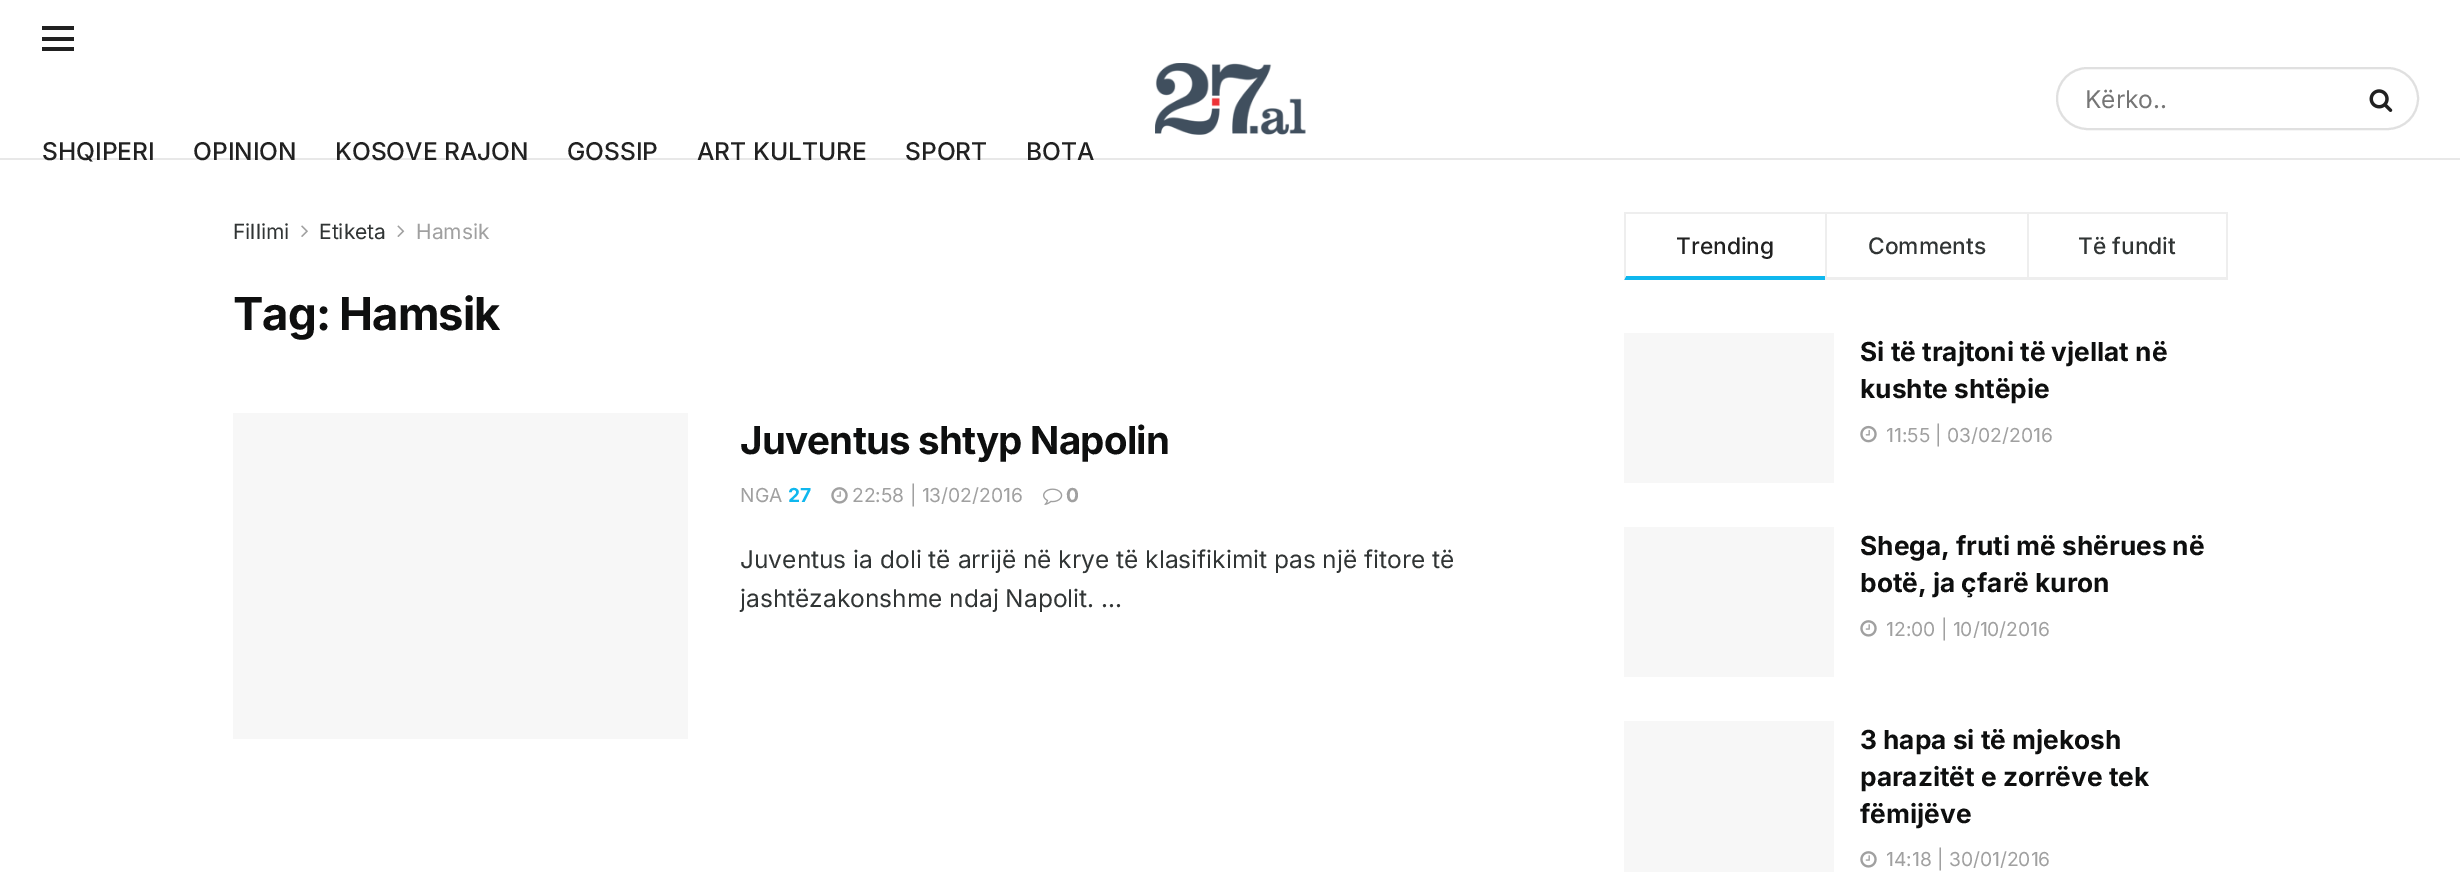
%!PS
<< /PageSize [2460 883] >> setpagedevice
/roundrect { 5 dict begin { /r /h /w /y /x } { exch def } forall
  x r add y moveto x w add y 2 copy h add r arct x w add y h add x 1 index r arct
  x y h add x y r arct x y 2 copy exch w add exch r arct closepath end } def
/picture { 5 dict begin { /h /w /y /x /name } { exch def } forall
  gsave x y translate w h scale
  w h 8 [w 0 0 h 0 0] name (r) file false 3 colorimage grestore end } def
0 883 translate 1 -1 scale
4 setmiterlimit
1 setgray
0 0 2460 883 rectfill
0.91 setgray
0 158 2460 2 rectfill
(img1.rgb) 1155 63 151 72 picture
0.878 setgray
2 setlinewidth
2057 68 361 61 30.5 roundrect stroke
/Inter-Regular [24.5 0 0 -24.5 0 0] selectfont
0.459 setgray
2085 108 moveto (Kërko..) show
(img2.rgb) 2369 89 24 23 picture
0.129 setgray
42 26 32 4 rectfill
42 37 32 4 rectfill
42 47 32 4 rectfill
/Inter-Medium [24.5 0 0 -24.5 0 0] selectfont
42 160 moveto (SHQIPERI) show
193 160 moveto (OPINION) show
335 160 moveto (KOSOVE RAJON) show
567 160 moveto (GOSSIP) show
697 160 moveto (ART KULTURE) show
905 160 moveto (SPORT) show
1026 160 moveto (BOTA) show
/Inter-Regular [21 0 0 -21 0 0] selectfont
0.192 0.208 0.208 setrgbcolor
233 239 moveto (Fillimi) show
(img3.rgb) 301 225 7 12 picture
319 239 moveto (Etiketa) show
(img4.rgb) 397 225 8 12 picture
0.627 setgray
416 239 moveto (Hamsik) show
/Inter-Bold [45.5 0 0 -45.5 0 0] selectfont
0.055 0.059 0.059 setrgbcolor
233 330 moveto -1 0 (Tag: Hamsik) ashow
0.969 setgray
233 413 455 326 rectfill
/Inter-Bold [38.5 0 0 -38.5 0 0] selectfont
0.055 0.059 0.059 setrgbcolor
740 454 moveto -0.75 0 (Juventus shtyp Napolin) ashow
/Inter-Regular [19.25 0 0 -19.25 0 0] selectfont
0.627 setgray
740 502 moveto (NGA) show
/Inter-Bold [19.25 0 0 -19.25 0 0] selectfont
0.059 0.718 0.933 setrgbcolor
788 502 moveto (27) show
(img5.rgb) 831 487 17 17 picture
/Inter-Regular [19.25 0 0 -19.25 0 0] selectfont
0.627 setgray
852 502 moveto (22:58 | 13/02/2016) show
(img6.rgb) 1043 488 20 17 picture
/Inter-Bold [19.25 0 0 -19.25 0 0] selectfont
1066 502 moveto (0) show
/Inter-Regular [24.5 0 0 -24.5 0 0] selectfont
0.192 0.208 0.208 setrgbcolor
740 568 moveto (Juventus ia doli të arrijë në krye të klasifikimit pas një fitore të) show
740 607 moveto (jashtëzakonshme ndaj Napolit. ...) show
0.933 setgray
1624 212 604 2 rectfill
0.059 0.718 0.933 setrgbcolor
newpath 1825 280 moveto 1624 280 lineto 1626 276 lineto 1825 276 lineto closepath fill
0.933 setgray
newpath 1624 280 moveto 1624 212 lineto 1626 214 lineto 1626 276 lineto closepath fill
/Inter-Medium [22.75 0 0 -22.75 0 0] selectfont
0.129 setgray
1676 254 moveto (Trending) show
0.933 setgray
1825 277 202 3 rectfill
1825 212 2 68 rectfill
0.192 0.208 0.208 setrgbcolor
1868 254 moveto (Comments) show
0.933 setgray
2226 212 2 68 rectfill
2027 277 201 3 rectfill
2027 212 2 68 rectfill
0.192 0.208 0.208 setrgbcolor
2078 254 moveto (Të fundit) show
0.969 setgray
1624 333 210 150 rectfill
/Inter-Bold [26.25 0 0 -26.25 0 0] selectfont
0.055 0.059 0.059 setrgbcolor
1860 361 moveto (Si të trajtoni të vjellat në) show
1860 398 moveto (kushte shtëpie) show
(img7.rgb) 1860 425 17 18 picture
/Inter-Regular [19.25 0 0 -19.25 0 0] selectfont
0.627 setgray
1886 442 moveto (11:55 | 03/02/2016) show
0.969 setgray
1624 527 210 150 rectfill
/Inter-Bold [26.25 0 0 -26.25 0 0] selectfont
0.055 0.059 0.059 setrgbcolor
1860 555 moveto (Shega, fruti më shërues në) show
1860 592 moveto (botë, ja çfarë kuron) show
(img5.rgb) 1860 620 17 17 picture
/Inter-Regular [19.25 0 0 -19.25 0 0] selectfont
0.627 setgray
1886 636 moveto (12:00 | 10/10/2016) show
0.969 setgray
1624 721 210 151 rectfill
/Inter-Bold [26.25 0 0 -26.25 0 0] selectfont
0.055 0.059 0.059 setrgbcolor
1860 749 moveto (3 hapa si të mjekosh) show
1860 786 moveto (parazitët e zorrëve tek) show
1860 823 moveto (fëmijëve) show
(img5.rgb) 1860 851 17 17 picture
/Inter-Regular [19.25 0 0 -19.25 0 0] selectfont
0.627 setgray
1886 866 moveto (14:18 | 30/01/2016) show
showpage
